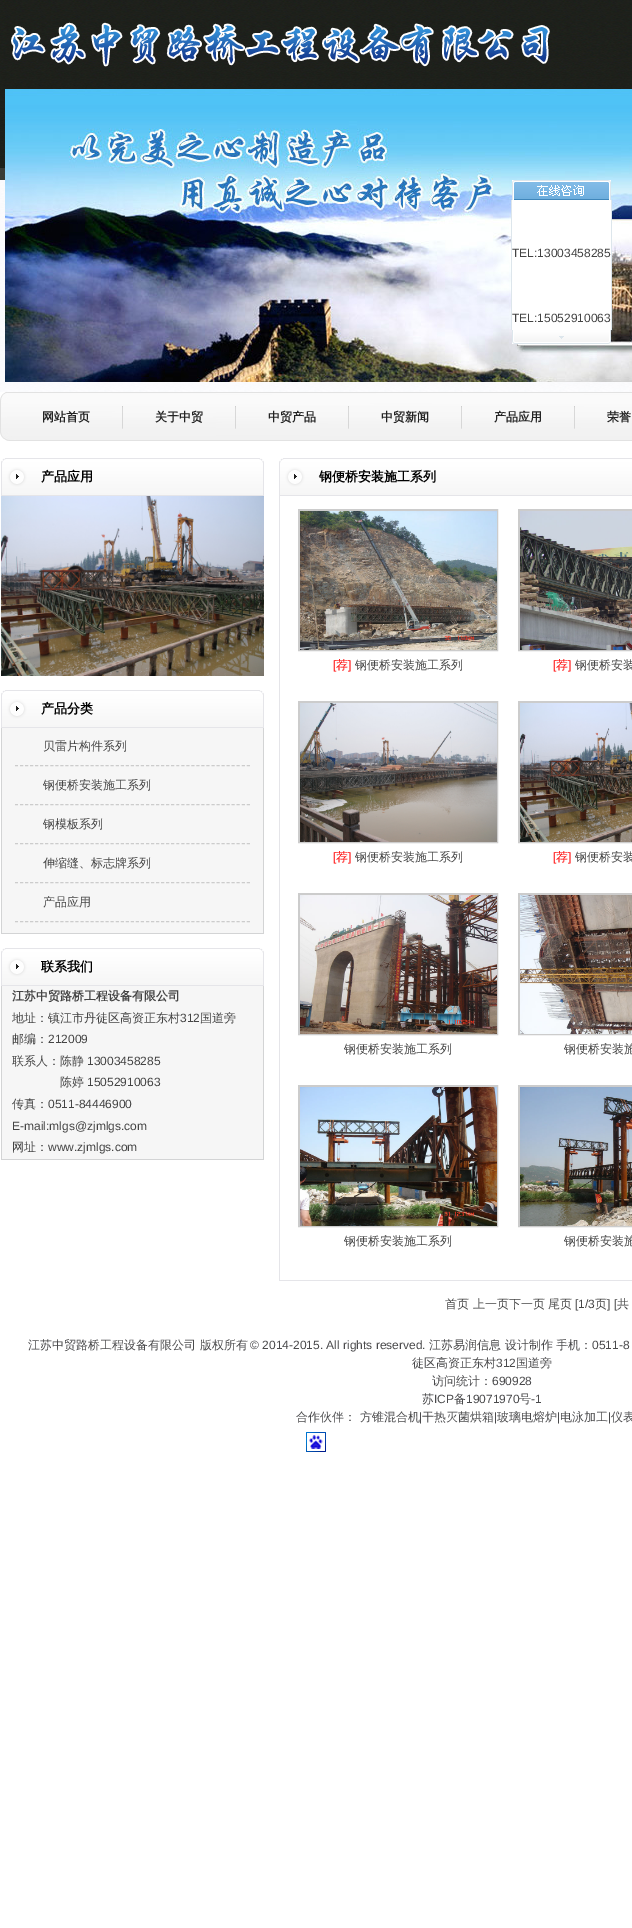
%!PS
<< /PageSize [632 1928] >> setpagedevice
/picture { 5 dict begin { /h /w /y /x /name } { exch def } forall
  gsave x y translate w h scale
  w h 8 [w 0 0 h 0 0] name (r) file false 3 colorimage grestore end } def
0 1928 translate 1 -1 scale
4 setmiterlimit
1 setgray
0 0 632 1928 rectfill
(img1.rgb) 0 0 632 392 picture
(img2.rgb) 11 22 539 45 picture
(img3.rgb) 5 88 627 294 picture
(img4.rgb) 512 180 99 20 picture
512 200 99 130 rectfill
/LiberationSans-Regular [12 0 0 -12 0 0] selectfont
0.267 setgray
512 257 moveto (TEL:13003458285) show
0.867 0.902 0.925 setrgbcolor
611 200 1 130 rectfill
511 200 1 130 rectfill
0.267 setgray
512 322 moveto (TEL:15052910063) show
(img5.rgb) 512 330 99 14 picture
(img6.rgb) 0 392 632 49 picture
(img7.rgb) 122 406 1 23 picture
/WenQuanYiZenHei-Bold [12 0 0 -12 0 0] selectfont
0.141 setgray
42 421 moveto (网站首页) show
(img7.rgb) 235 406 1 23 picture
155 421 moveto (关于中贸) show
(img7.rgb) 348 406 1 23 picture
268 421 moveto (中贸产品) show
(img7.rgb) 461 406 1 23 picture
381 421 moveto (中贸新闻) show
(img7.rgb) 574 406 1 23 picture
494 421 moveto (产品应用) show
607 421 moveto (荣誉) show
(img8.rgb) 1 458 263 38 picture
/WenQuanYiZenHei-Bold [13 0 0 -13 0 0] selectfont
0 setgray
41 481 moveto (产品应用) show
(img9.rgb) 1 496 263 180 picture
(img8.rgb) 1 690 263 38 picture
41 713 moveto (产品分类) show
0.965 setgray
2 728 261 205 rectfill
0.827 0.831 0.835 setrgbcolor
263 728 1 206 rectfill
1 933 263 1 rectfill
1 728 1 206 rectfill
0.8 setgray
[3 2.04] 0 setdash
newpath 15 765.5 moveto 250 765.5 lineto stroke
/WenQuanYiZenHei-Medium [12 0 0 -12 0 0] selectfont
0.267 setgray
43 750 moveto (贝雷片构件系列) show
0.8 setgray
newpath 15 804.5 moveto 250 804.5 lineto stroke
0.267 setgray
43 789 moveto (钢便桥安装施工系列) show
0.8 setgray
newpath 15 843.5 moveto 250 843.5 lineto stroke
0.267 setgray
43 828 moveto (钢模板系列) show
0.8 setgray
newpath 15 882.5 moveto 250 882.5 lineto stroke
0.267 setgray
43 867 moveto (伸缩缝、标志牌系列) show
0.8 setgray
newpath 15 921.5 moveto 250 921.5 lineto stroke
0.267 setgray
43 906 moveto (产品应用) show
(img8.rgb) 1 948 263 38 picture
/WenQuanYiZenHei-Bold [13 0 0 -13 0 0] selectfont
0 setgray
41 971 moveto (联系我们) show
0.965 setgray
2 986 261 173 rectfill
0.827 0.831 0.835 setrgbcolor
263 986 1 174 rectfill
1 1159 263 1 rectfill
1 986 1 174 rectfill
/WenQuanYiZenHei-Bold [12 0 0 -12 0 0] selectfont
0.267 setgray
12 1000 moveto (江苏中贸路桥工程设备有限公司) show
/WenQuanYiZenHei-Medium [12 0 0 -12 0 0] selectfont
12 1022 moveto (地址：镇江市丹徒区高资正东村) show
/LiberationSans-Regular [12 0 0 -12 0 0] selectfont
180 1022 moveto (312) show
/WenQuanYiZenHei-Medium [12 0 0 -12 0 0] selectfont
200 1022 moveto (国道旁) show
12 1043 moveto (邮编：) show
/LiberationSans-Regular [12 0 0 -12 0 0] selectfont
48 1043 moveto (212009) show
/WenQuanYiZenHei-Medium [12 0 0 -12 0 0] selectfont
12 1065 moveto (联系人：陈静) show
/LiberationSans-Regular [12 0 0 -12 0 0] selectfont
87 1065 moveto (13003458285) show
/WenQuanYiZenHei-Medium [12 0 0 -12 0 0] selectfont
60 1086 moveto (陈婷) show
/LiberationSans-Regular [12 0 0 -12 0 0] selectfont
87 1086 moveto (15052910063) show
/WenQuanYiZenHei-Medium [12 0 0 -12 0 0] selectfont
12 1108 moveto (传真：) show
/LiberationSans-Regular [12 0 0 -12 0 0] selectfont
48 1108 moveto (0511-84446900) show
12 1130 moveto (E-mail:mlgs@zjmlgs.com) show
/WenQuanYiZenHei-Medium [12 0 0 -12 0 0] selectfont
12 1151 moveto (网址：) show
/LiberationSans-Regular [12 0 0 -12 0 0] selectfont
48 1151 moveto (www.zjmlgs.com) show
(img10.rgb) 279 458 353 38 picture
/WenQuanYiZenHei-Bold [13 0 0 -13 0 0] selectfont
0 setgray
319 481 moveto (钢便桥安装施工系列) show
0.898 0.898 0.914 setrgbcolor
279 1280 353 1 rectfill
279 496 1 785 rectfill
0.8 setgray
[] 0 setdash
298.5 509.5 199 141 rectstroke
gsave
299 510 198 140 rectclip
299.5 510.5 199 141 rectstroke
grestore
(img11.rgb) 300 511 197 139 picture
/LiberationSans-Regular [12 0 0 -12 0 0] selectfont
1 0 0 setrgbcolor
333 669 moveto ([) show
/WenQuanYiZenHei-Medium [12 0 0 -12 0 0] selectfont
336 669 moveto (荐) show
/LiberationSans-Regular [12 0 0 -12 0 0] selectfont
348 669 moveto (]) show
/WenQuanYiZenHei-Medium [12 0 0 -12 0 0] selectfont
0.267 setgray
355 669 moveto (钢便桥安装施工系列) show
0.8 setgray
518.5 509.5 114 141 rectstroke
gsave
519 510 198 140 rectclip
519.5 510.5 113 141 rectstroke
grestore
(img12.rgb) 520 511 112 139 picture
/LiberationSans-Regular [12 0 0 -12 0 0] selectfont
1 0 0 setrgbcolor
553 669 moveto ([) show
/WenQuanYiZenHei-Medium [12 0 0 -12 0 0] selectfont
556 669 moveto (荐) show
/LiberationSans-Regular [12 0 0 -12 0 0] selectfont
568 669 moveto (]) show
/WenQuanYiZenHei-Medium [12 0 0 -12 0 0] selectfont
0.267 setgray
575 669 moveto (钢便桥安装) show
0.8 setgray
298.5 701.5 199 141 rectstroke
gsave
299 702 198 140 rectclip
299.5 702.5 199 141 rectstroke
grestore
(img13.rgb) 300 703 197 139 picture
/LiberationSans-Regular [12 0 0 -12 0 0] selectfont
1 0 0 setrgbcolor
333 861 moveto ([) show
/WenQuanYiZenHei-Medium [12 0 0 -12 0 0] selectfont
336 861 moveto (荐) show
/LiberationSans-Regular [12 0 0 -12 0 0] selectfont
348 861 moveto (]) show
/WenQuanYiZenHei-Medium [12 0 0 -12 0 0] selectfont
0.267 setgray
355 861 moveto (钢便桥安装施工系列) show
0.8 setgray
518.5 701.5 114 141 rectstroke
gsave
519 702 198 140 rectclip
519.5 702.5 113 141 rectstroke
grestore
(img14.rgb) 520 703 112 139 picture
/LiberationSans-Regular [12 0 0 -12 0 0] selectfont
1 0 0 setrgbcolor
553 861 moveto ([) show
/WenQuanYiZenHei-Medium [12 0 0 -12 0 0] selectfont
556 861 moveto (荐) show
/LiberationSans-Regular [12 0 0 -12 0 0] selectfont
568 861 moveto (]) show
/WenQuanYiZenHei-Medium [12 0 0 -12 0 0] selectfont
0.267 setgray
575 861 moveto (钢便桥安装) show
0.8 setgray
298.5 893.5 199 141 rectstroke
gsave
299 894 198 140 rectclip
299.5 894.5 199 141 rectstroke
grestore
(img15.rgb) 300 895 197 139 picture
0.267 setgray
344 1053 moveto (钢便桥安装施工系列) show
0.8 setgray
518.5 893.5 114 141 rectstroke
gsave
519 894 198 140 rectclip
519.5 894.5 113 141 rectstroke
grestore
(img16.rgb) 520 895 112 139 picture
0.267 setgray
564 1053 moveto (钢便桥安装施) show
0.8 setgray
298.5 1085.5 199 141 rectstroke
gsave
299 1086 198 140 rectclip
299.5 1086.5 199 141 rectstroke
grestore
(img17.rgb) 300 1087 197 139 picture
0.267 setgray
344 1245 moveto (钢便桥安装施工系列) show
0.8 setgray
518.5 1085.5 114 141 rectstroke
gsave
519 1086 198 140 rectclip
519.5 1086.5 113 141 rectstroke
grestore
(img18.rgb) 520 1087 112 139 picture
0.267 setgray
564 1245 moveto (钢便桥安装施) show
445 1308 moveto (首页 上一页下一页 尾页) show
/LiberationSans-Regular [12 0 0 -12 0 0] selectfont
575 1308 moveto ([1/3) show
/WenQuanYiZenHei-Medium [12 0 0 -12 0 0] selectfont
595 1308 moveto (页) show
/LiberationSans-Regular [12 0 0 -12 0 0] selectfont
607 1308 moveto (] [) show
/WenQuanYiZenHei-Medium [12 0 0 -12 0 0] selectfont
617 1308 moveto (共) show
0.29 0.29 0.298 setrgbcolor
28 1349 moveto (江苏中贸路桥工程设备有限公司 版权所有) show
/LiberationSans-Regular [12 0 0 -12 0 0] selectfont
250 1349 moveto (© 2014-2015. All rights reserved.) show
/WenQuanYiZenHei-Medium [12 0 0 -12 0 0] selectfont
429 1349 moveto (江苏易润信息 设计制作 手机：) show
/LiberationSans-Regular [12 0 0 -12 0 0] selectfont
592 1349 moveto (0511-8) show
/WenQuanYiZenHei-Medium [12 0 0 -12 0 0] selectfont
412 1367 moveto (徒区高资正东村) show
/LiberationSans-Regular [12 0 0 -12 0 0] selectfont
496 1367 moveto (312) show
/WenQuanYiZenHei-Medium [12 0 0 -12 0 0] selectfont
516 1367 moveto (国道旁) show
432 1385 moveto (访问统计：) show
/LiberationSans-Regular [12 0 0 -12 0 0] selectfont
492 1385 moveto (690928) show
/WenQuanYiZenHei-Medium [12 0 0 -12 0 0] selectfont
422 1403 moveto (苏) show
/LiberationSans-Regular [12 0 0 -12 0 0] selectfont
434 1403 moveto (ICP) show
/WenQuanYiZenHei-Medium [12 0 0 -12 0 0] selectfont
454 1403 moveto (备) show
/LiberationSans-Regular [12 0 0 -12 0 0] selectfont
466 1403 moveto (19071970) show
/WenQuanYiZenHei-Medium [12 0 0 -12 0 0] selectfont
519 1403 moveto (号) show
/LiberationSans-Regular [12 0 0 -12 0 0] selectfont
531 1403 moveto (-1) show
/WenQuanYiZenHei-Medium [12 0 0 -12 0 0] selectfont
296 1421 moveto (合作伙伴： 方锥混合机) show
/LiberationSans-Regular [12 0 0 -12 0 0] selectfont
419 1421 moveto (|) show
/WenQuanYiZenHei-Medium [12 0 0 -12 0 0] selectfont
422 1421 moveto (干热灭菌烘箱) show
/LiberationSans-Regular [12 0 0 -12 0 0] selectfont
494 1421 moveto (|) show
/WenQuanYiZenHei-Medium [12 0 0 -12 0 0] selectfont
497 1421 moveto (玻璃电熔炉) show
/LiberationSans-Regular [12 0 0 -12 0 0] selectfont
557 1421 moveto (|) show
/WenQuanYiZenHei-Medium [12 0 0 -12 0 0] selectfont
560 1421 moveto (电泳加工) show
/LiberationSans-Regular [12 0 0 -12 0 0] selectfont
608 1421 moveto (|) show
/WenQuanYiZenHei-Medium [12 0 0 -12 0 0] selectfont
611 1421 moveto (仪表) show
(img19.rgb) 306 1432 20 20 picture
showpage
